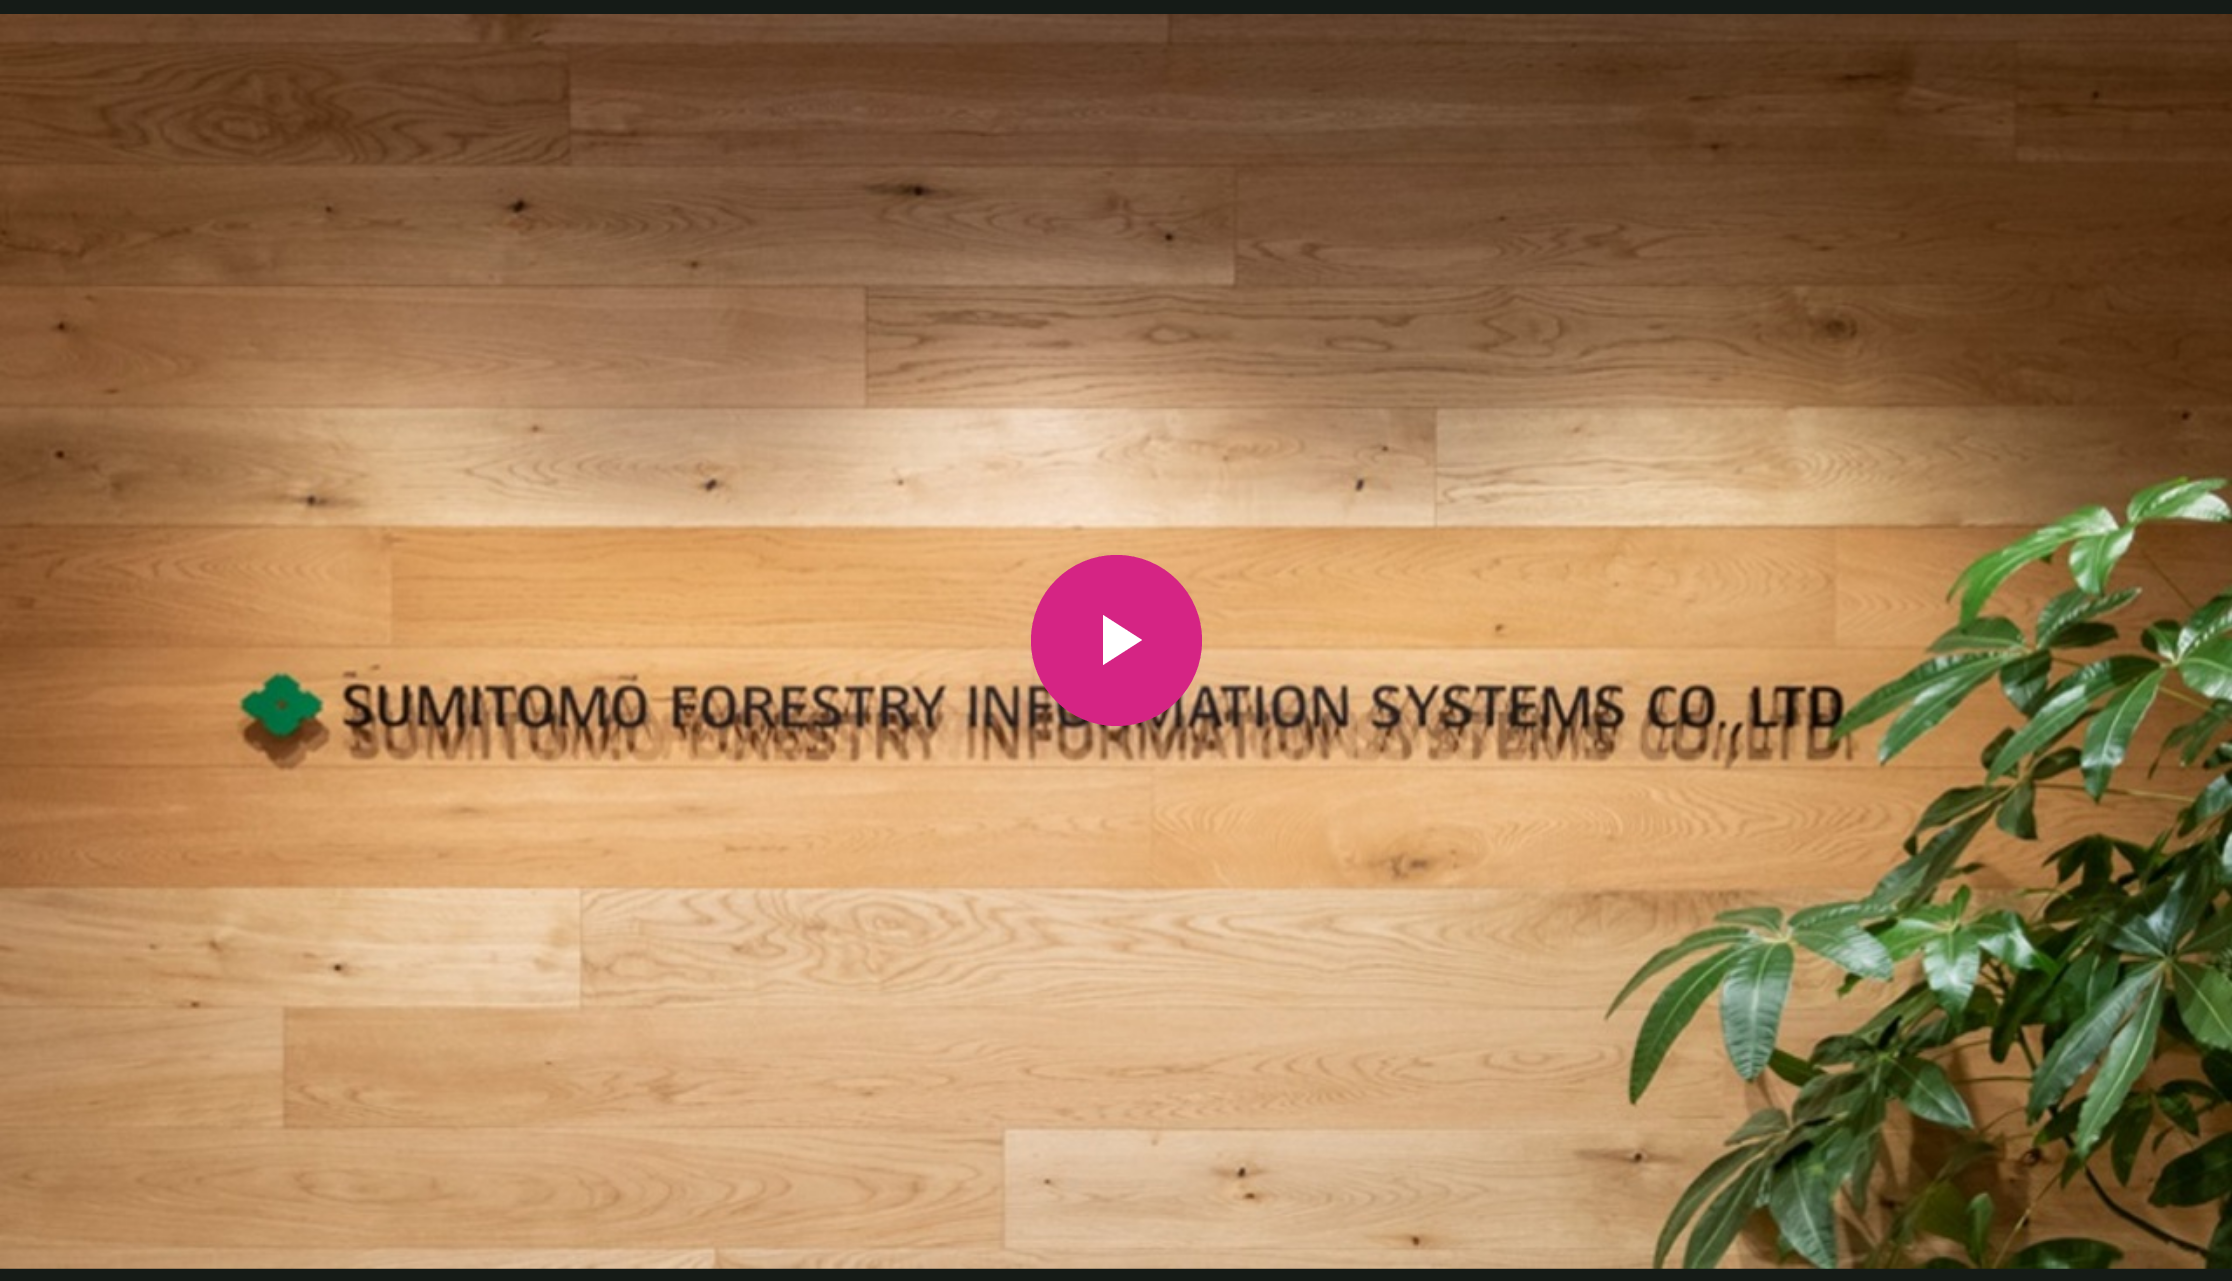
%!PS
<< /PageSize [2232 1281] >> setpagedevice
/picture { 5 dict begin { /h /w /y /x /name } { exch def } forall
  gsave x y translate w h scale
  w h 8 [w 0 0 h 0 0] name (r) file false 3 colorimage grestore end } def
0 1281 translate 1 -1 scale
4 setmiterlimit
0.082 0.106 0.09 setrgbcolor
0 0 2232 1281 rectfill
(img1.rgb) 0 14 2232 1255 picture
0.835 0.141 0.518 setrgbcolor
newpath 1116.5 640.5 85.5 0 360 arc closepath fill
1 setgray
newpath 1103 615 moveto 1103 665 lineto 1142 640 lineto closepath fill
showpage
